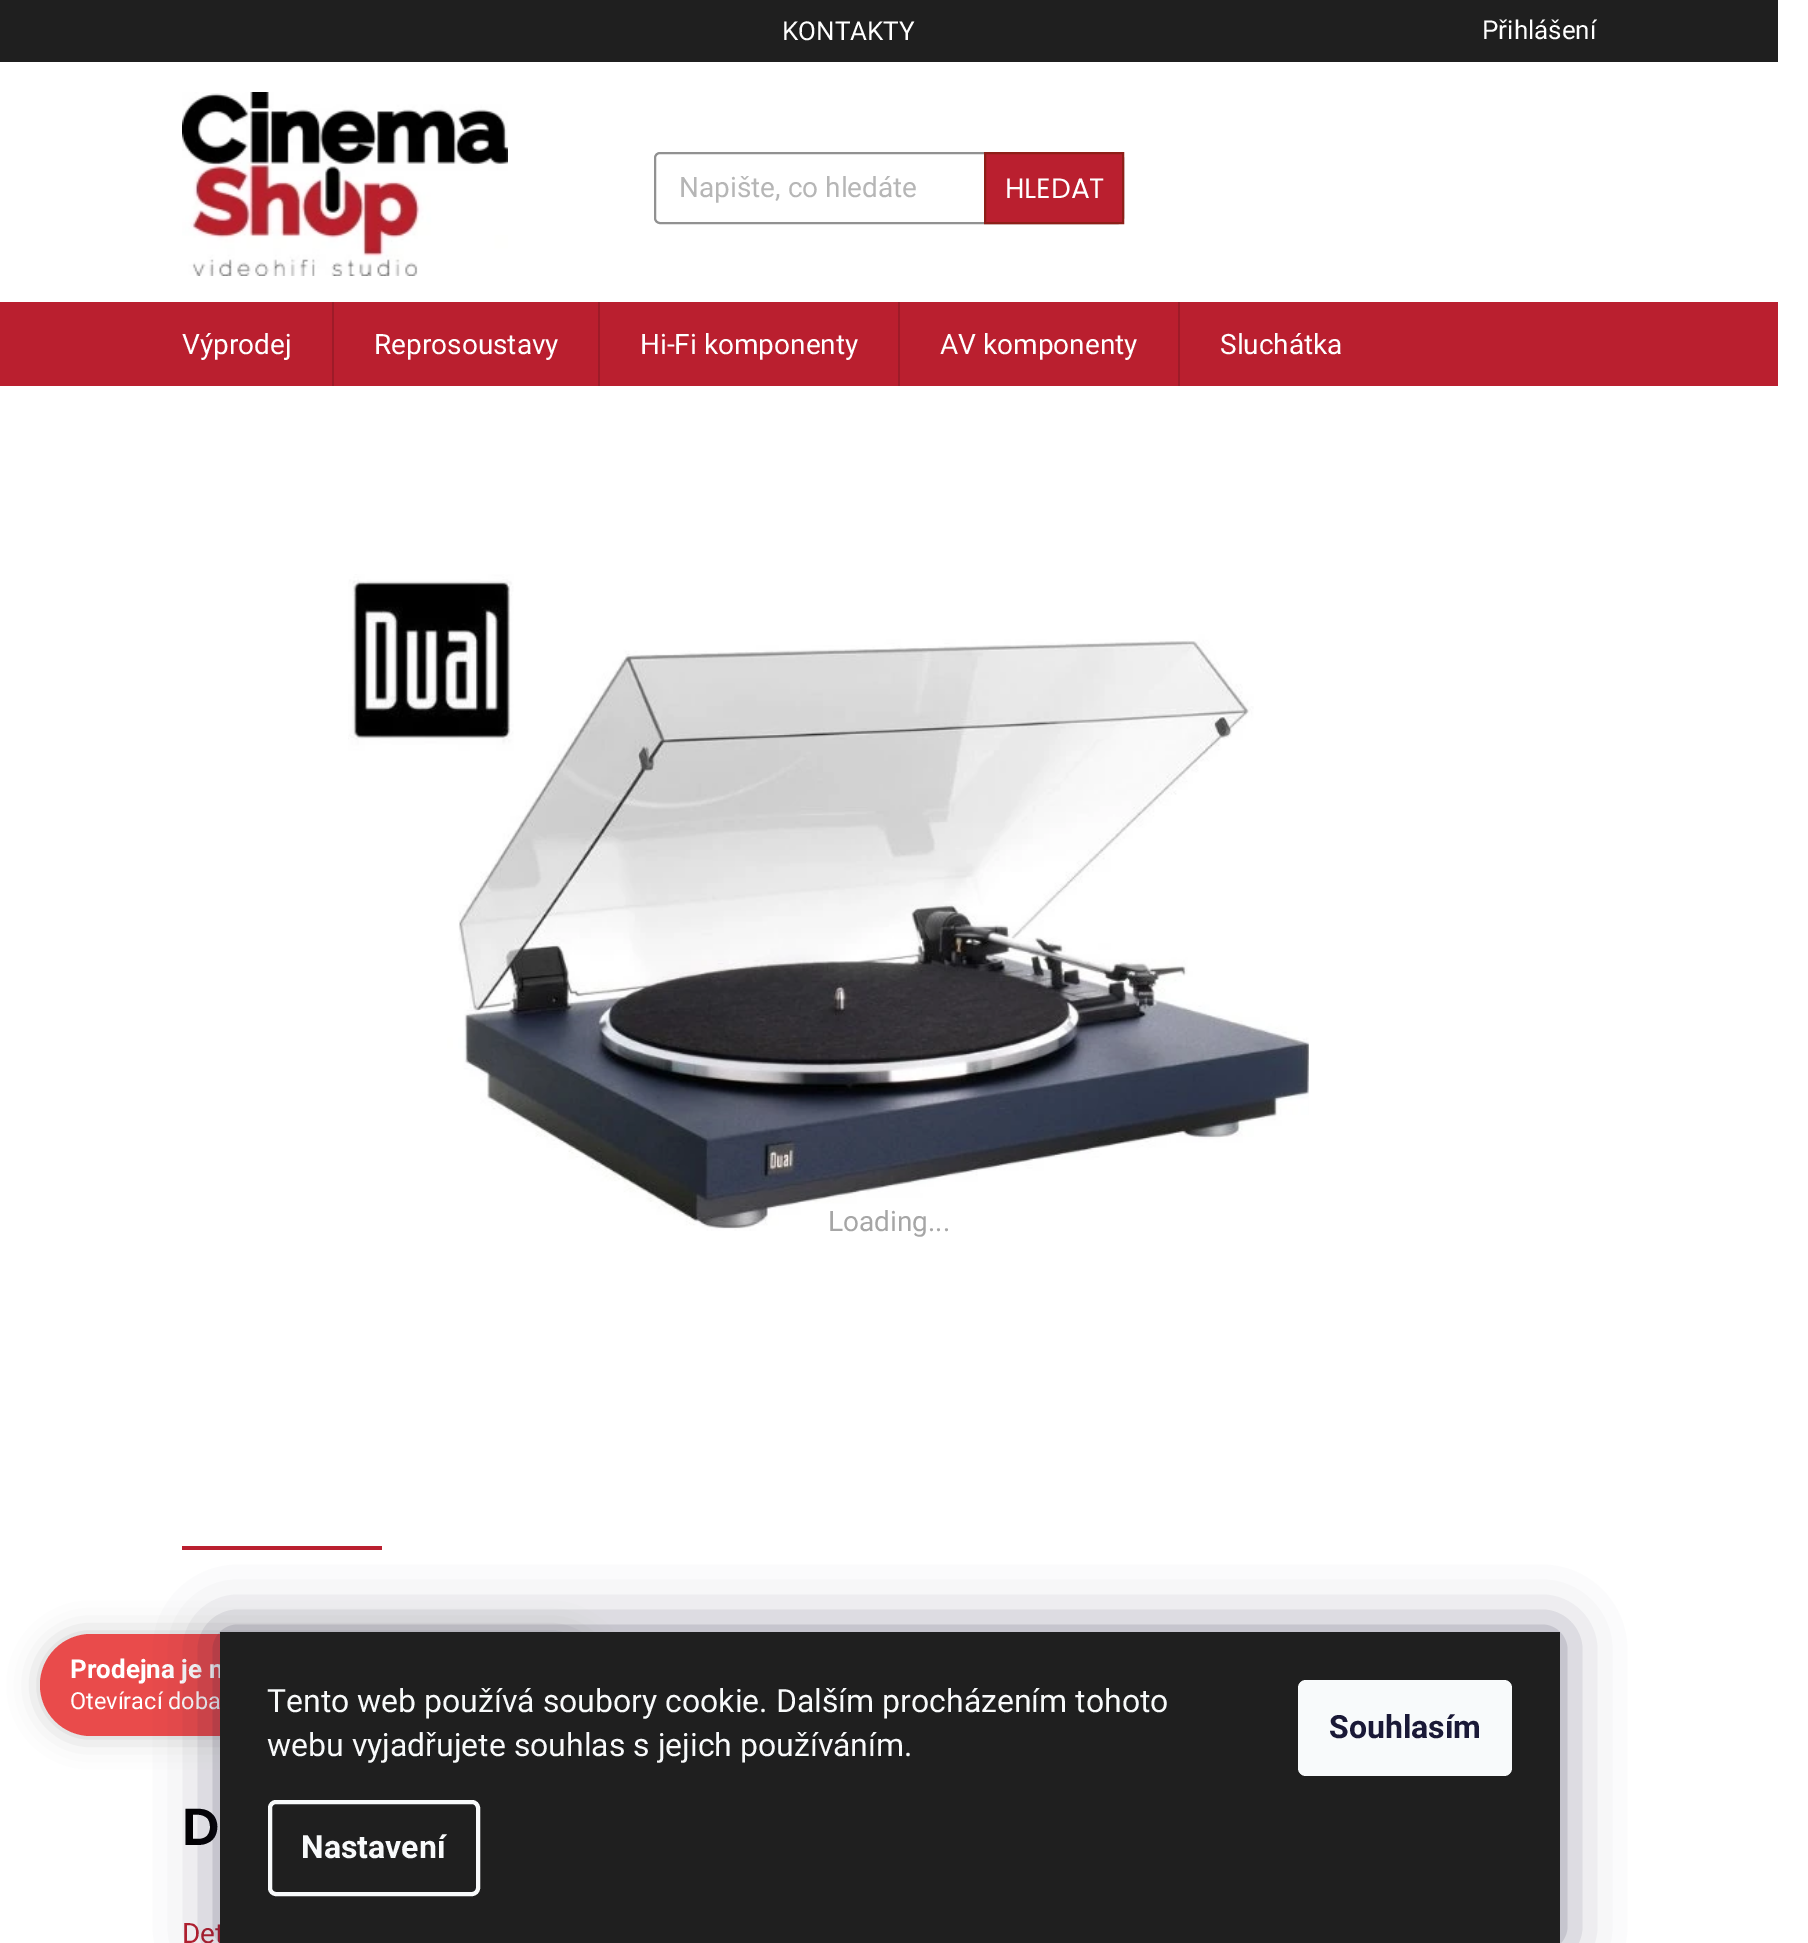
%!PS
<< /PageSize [1808 1943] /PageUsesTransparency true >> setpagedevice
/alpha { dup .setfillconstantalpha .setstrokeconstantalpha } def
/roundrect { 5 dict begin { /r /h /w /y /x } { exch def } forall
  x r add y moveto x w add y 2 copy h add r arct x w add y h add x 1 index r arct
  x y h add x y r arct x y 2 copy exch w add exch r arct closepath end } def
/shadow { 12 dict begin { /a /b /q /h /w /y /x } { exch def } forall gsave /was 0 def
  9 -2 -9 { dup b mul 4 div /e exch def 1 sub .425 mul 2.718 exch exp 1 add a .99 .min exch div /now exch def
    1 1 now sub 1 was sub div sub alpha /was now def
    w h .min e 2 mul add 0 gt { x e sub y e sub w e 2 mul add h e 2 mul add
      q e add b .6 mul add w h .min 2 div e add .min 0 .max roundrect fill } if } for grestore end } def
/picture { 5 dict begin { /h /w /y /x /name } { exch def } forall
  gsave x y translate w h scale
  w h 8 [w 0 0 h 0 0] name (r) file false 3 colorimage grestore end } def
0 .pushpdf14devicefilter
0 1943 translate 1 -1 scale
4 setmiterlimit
1 setgray
0 0 1808 1943 rectfill
0 setgray
40 1634 560 102 51 15 0.2 shadow
0.914 0.294 0.294 setrgbcolor
40 1634 560 102 51 roundrect fill
/Roboto-Bold [26 0 0 -26 0 0] selectfont
1 setgray
70 1678 moveto (Prodejna je n) show
/Roboto-Regular [23.5 0 0 -23.5 0 0] selectfont
70 1709 moveto (Otevírací doba) show
0.122 setgray
0 0 1778 62 rectfill
/Roboto-Regular [26 0 0 -26 0 0] selectfont
1 setgray
782 40 moveto (KONTAKTY) show
1482 39 moveto (Přihlášení) show
(img1.rgb) 182 92 326 184 picture
0.569 setgray
2 setlinewidth
655 153 468 70 5 roundrect stroke
/Roboto-Regular [28 0 0 -28 0 0] selectfont
0.714 setgray
679 197 moveto (Napište, co hledáte) show
0.729 0.122 0.184 setrgbcolor
newpath 985 153 moveto 1123 153 lineto 1123 223 lineto 985 223 lineto closepath gsave fill grestore
0.557 0.122 0.094 setrgbcolor
stroke
/Poppins-Regular [28 0 0 -28 0 0] selectfont
1 setgray
1005 198 moveto (HLEDAT) show
0.729 0.122 0.184 setrgbcolor
0 302 1778 84 rectfill
/Roboto-Regular [28 0 0 -28 0 0] selectfont
1 setgray
182 354 moveto (Výprodej) show
0.616 0.106 0.157 setrgbcolor
332 302 2 84 rectfill
1 setgray
374 354 moveto (Reprosoustavy) show
0.616 0.106 0.157 setrgbcolor
598 302 2 84 rectfill
1 setgray
640 354 moveto (Hi-Fi komponenty) show
0.616 0.106 0.157 setrgbcolor
898 302 2 84 rectfill
1 setgray
940 354 moveto (AV komponenty) show
0.616 0.106 0.157 setrgbcolor
1178 302 2 84 rectfill
1 setgray
1220 354 moveto (Sluchátka) show
(img2.rgb) 348 574 961 657 picture
0.651 setgray
828 1231 moveto (Loading...) show
0.729 0.122 0.184 setrgbcolor
182 1546 200 4 rectfill
/Poppins-SemiBold [52 0 0 -52 0 0] selectfont
0 setgray
182 1845 moveto (D) show
/Roboto-Regular [28 0 0 -28 0 0] selectfont
0.729 0.122 0.184 setrgbcolor
182 1943 moveto (Det) show
0.106 0.098 0.224 setrgbcolor
220 1632 1340 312 0 30 0.5 shadow
0.122 setgray
220 1632 1340 311 rectfill
/Roboto-Regular [32 0 0 -32 0 0] selectfont
0.973 0.98 0.984 setrgbcolor
267 1712 moveto (Tento web používá soubory cookie. Dalším procházením tohoto) show
267 1756 moveto (webu vyjadřujete souhlas s jejich používáním.) show
4 setlinewidth
270 1802 208 92 6 roundrect stroke
/Roboto-Bold [32 0 0 -32 0 0] selectfont
301 1858 moveto (Nastavení) show
1298 1680 214 96 8 roundrect fill
0.102 0.098 0.216 setrgbcolor
1329 1738 moveto (Souhlasím) show
.poppdf14devicefilter showpage
